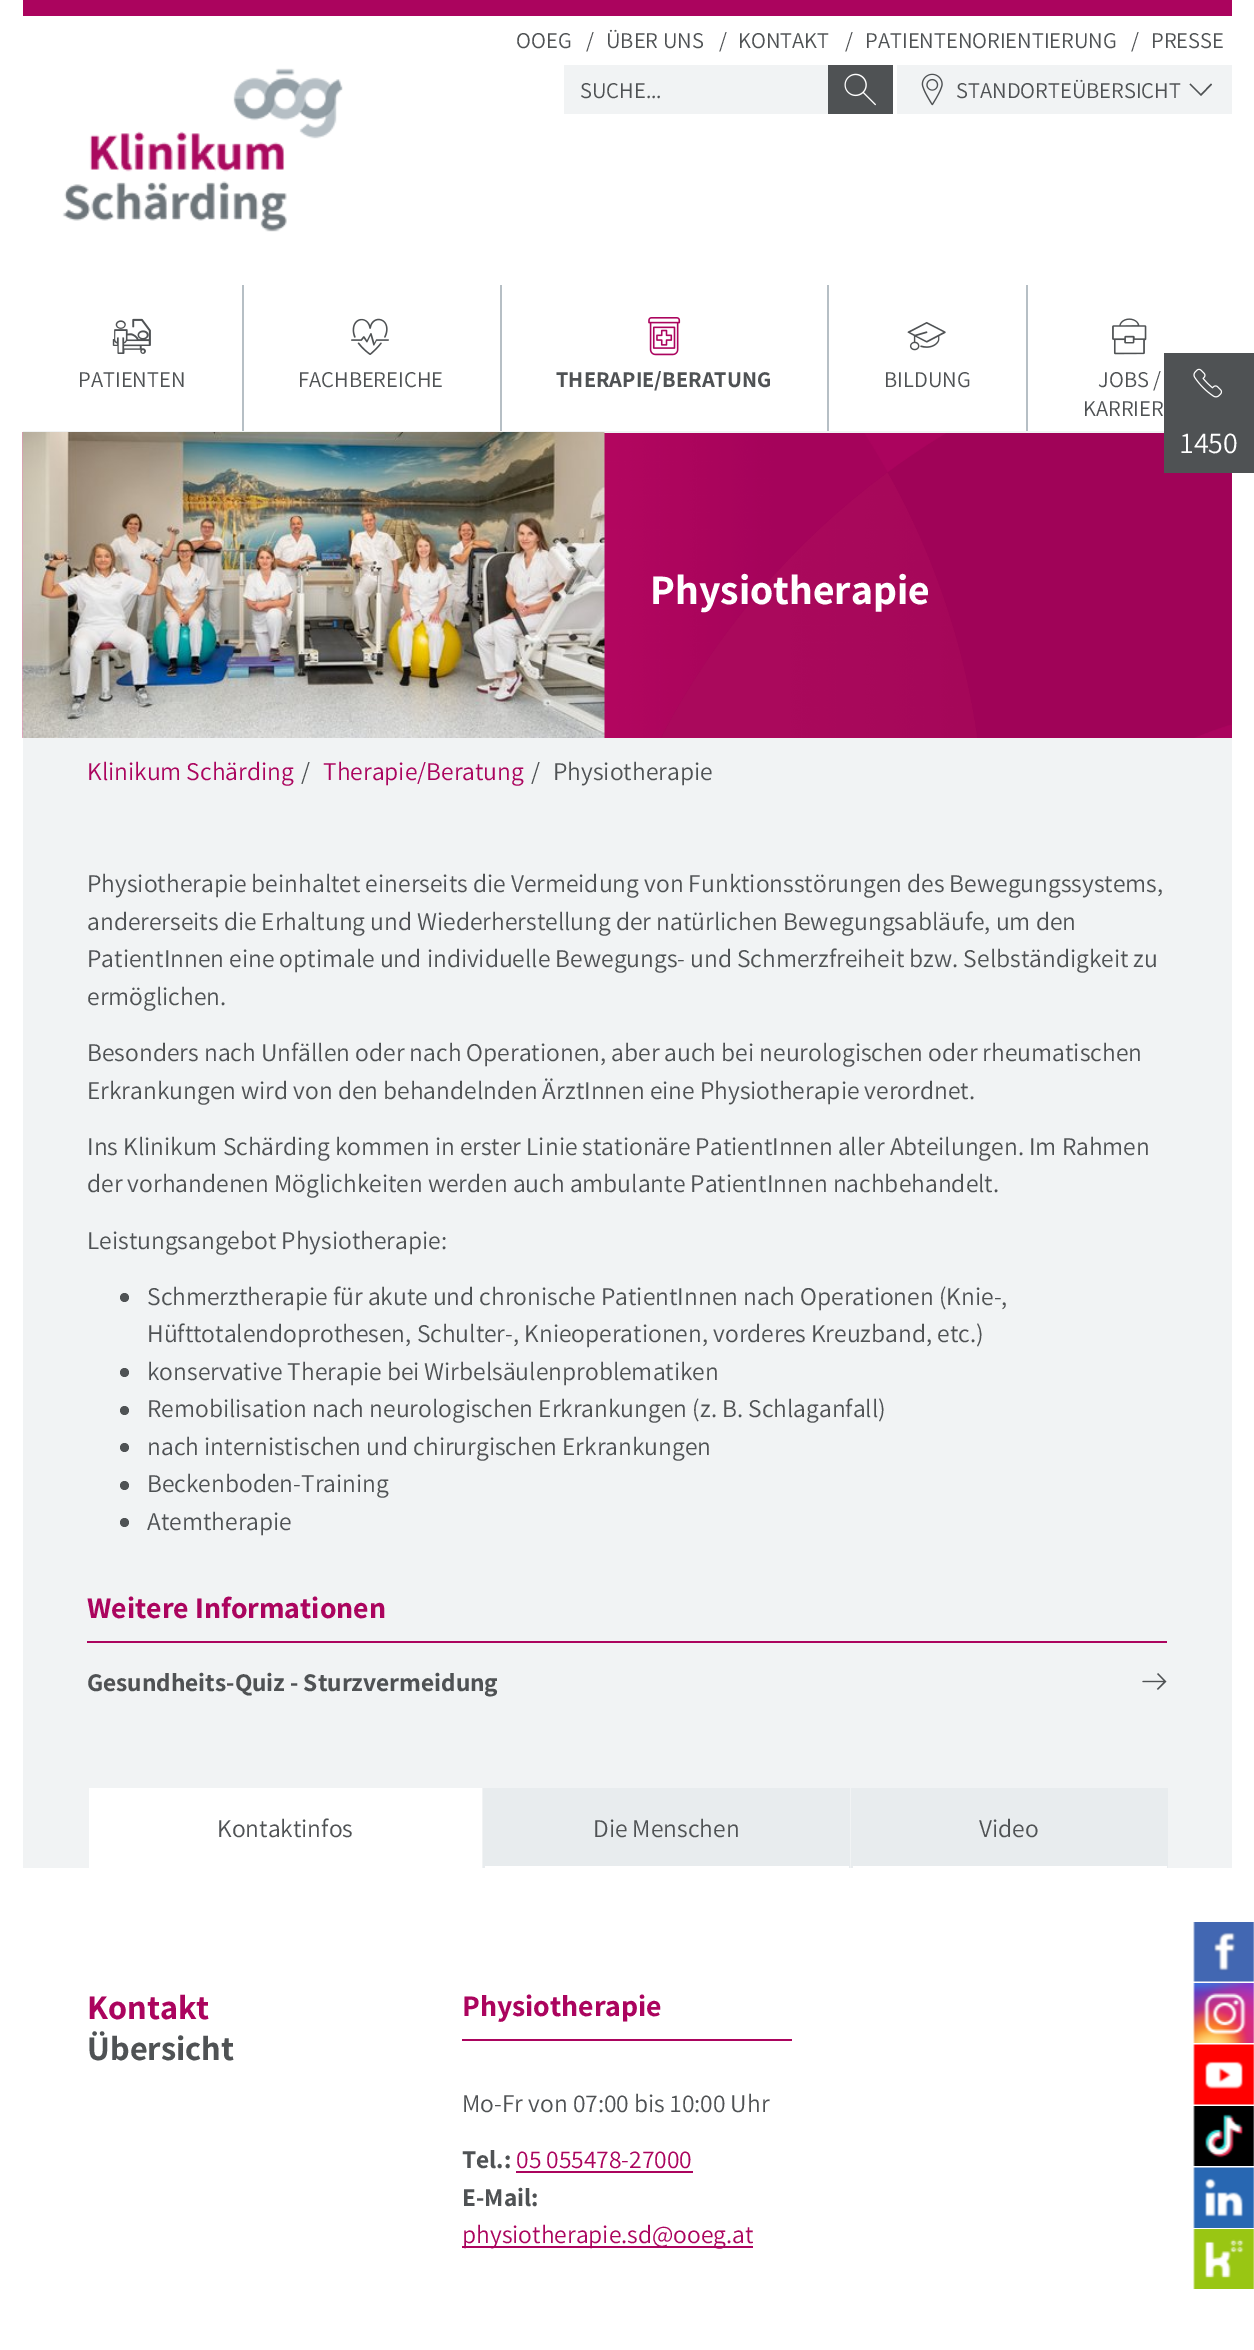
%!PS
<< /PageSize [1254 2350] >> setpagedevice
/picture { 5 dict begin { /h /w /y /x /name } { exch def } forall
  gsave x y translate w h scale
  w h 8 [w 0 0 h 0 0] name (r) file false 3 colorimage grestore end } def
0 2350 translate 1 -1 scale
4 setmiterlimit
1 setgray
0 0 1254 2350 rectfill
0.671 0.016 0.369 setrgbcolor
23 0 1209 16 rectfill
1231 473 1 265 rectfill
(img10.rgb) 22 432 1210 306 picture
0.945 0.953 0.957 setrgbcolor
23 431 1141 2 rectfill
/Assistant-ExtraLight [22.5 0 0 -22.5 0 0] selectfont
0.31 0.322 0.329 setrgbcolor
516 48 moveto (OOEG) show
586 48 moveto (/) show
606 48 moveto (ÜBER UNS) show
719 48 moveto (/) show
738 48 moveto (KONTAKT) show
845 48 moveto (/) show
865 48 moveto (PATIENTENORIENTIERUNG) show
1131 48 moveto (/) show
1151 48 moveto (PRESSE) show
0.945 0.953 0.957 setrgbcolor
564 65 264 49 rectfill
0.31 0.322 0.329 setrgbcolor
580 98 moveto (SUCHE...) show
828 65 65 49 rectfill
(img1.rgb) 844 73 32 33 picture
0.945 0.953 0.957 setrgbcolor
897 65 335 49 rectfill
(img2.rgb) 921 73 22 33 picture
0.31 0.322 0.329 setrgbcolor
956 98 moveto (STANDORTEÜBERSICHT) show
newpath 1201 96 moveto 1189.5 84.5 lineto 1190.5 83.5 lineto 1201 94 lineto 1211 83.5 lineto 1212 84.5 lineto closepath fill
(img3.rgb) 112 318 39 36 picture
78 387 moveto (PATIENTEN) show
0.714 0.749 0.773 setrgbcolor
242 285 2 146 rectfill
(img4.rgb) 351 318 38 37 picture
0.31 0.322 0.329 setrgbcolor
298 387 moveto (FACHBEREICHE) show
0.714 0.749 0.773 setrgbcolor
500 285 2 146 rectfill
(img5.rgb) 648 317 33 39 picture
/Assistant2-ExtraLight [22.5 0 0 -22.5 0 0] selectfont
0.31 0.322 0.329 setrgbcolor
556 387 moveto (THERAPIE/BERATUNG) show
0.714 0.749 0.773 setrgbcolor
827 285 2 146 rectfill
(img6.rgb) 907 322 39 29 picture
/Assistant-ExtraLight [22.5 0 0 -22.5 0 0] selectfont
0.31 0.322 0.329 setrgbcolor
884 387 moveto (BILDUNG) show
0.714 0.749 0.773 setrgbcolor
1026 285 2 146 rectfill
(img7.rgb) 1112 318 35 37 picture
0.31 0.322 0.329 setrgbcolor
1098 387 moveto (JOBS /) show
1083 416 moveto (KARRIER) show
(img8.rgb) 62 68 281 164 picture
1164 353 90 120 rectfill
(img9.rgb) 1193 368 30 30 picture
/Assistant-ExtraLight [30 0 0 -30 0 0] selectfont
1 setgray
1180 453 moveto (1450) show
(img11.rgb) 22 432 583 306 picture
/Assistant2-ExtraLight [42 0 0 -42 0 0] selectfont
650 604 moveto (Physiotherapie) show
0.945 0.953 0.957 setrgbcolor
23 738 1209 1130 rectfill
/Assistant-ExtraLight [25.5 0 0 -25.5 0 0] selectfont
0.671 0.016 0.369 setrgbcolor
87 780 moveto (Klinikum Schärding) show
0.31 0.322 0.329 setrgbcolor
301 780 moveto (/) show
0.671 0.016 0.369 setrgbcolor
323 780 moveto (Therapie/Beratung) show
0.31 0.322 0.329 setrgbcolor
531 780 moveto (/) show
553 780 moveto (Physiotherapie) show
87 892 moveto (Physiotherapie beinhaltet einerseits die Vermeidung von Funktionsstörungen des Bewegungssystems,) show
87 930 moveto (andererseits die Erhaltung und Wiederherstellung der natürlichen Bewegungsabläufe, um den) show
87 967 moveto (PatientInnen eine optimale und individuelle Bewegungs- und Schmerzfreiheit bzw. Selbständigkeit zu) show
87 1005 moveto (ermöglichen.) show
87 1061 moveto (Besonders nach Unfällen oder nach Operationen, aber auch bei neurologischen oder rheumatischen) show
87 1099 moveto (Erkrankungen wird von den behandelnden ÄrztInnen eine Physiotherapie verordnet.) show
87 1155 moveto (Ins Klinikum Schärding kommen in erster Linie stationäre PatientInnen aller Abteilungen. Im Rahmen) show
87 1192 moveto (der vorhandenen Möglichkeiten werden auch ambulante PatientInnen nachbehandelt.) show
87 1249 moveto (Leistungsangebot Physiotherapie:) show
newpath 124.5 1297.5 4.5 0 360 arc closepath fill
147 1305 moveto (Schmerztherapie für akute und chronische PatientInnen nach Operationen \(Knie-,) show
147 1342 moveto (Hüfttotalendoprothesen, Schulter-, Knieoperationen, vorderes Kreuzband, etc.\)) show
newpath 124.5 1372.5 4.5 0 360 arc closepath fill
147 1380 moveto (konservative Therapie bei Wirbelsäulenproblematiken) show
newpath 124.5 1410.5 4.5 0 360 arc closepath fill
147 1417 moveto (Remobilisation nach neurologischen Erkrankungen \(z. B. Schlaganfall\)) show
newpath 124.5 1447.5 4.5 0 360 arc closepath fill
147 1455 moveto (nach internistischen und chirurgischen Erkrankungen) show
newpath 124.5 1485.5 4.5 0 360 arc closepath fill
147 1492 moveto (Beckenboden-Training) show
newpath 124.5 1522.5 4.5 0 360 arc closepath fill
147 1530 moveto (Atemtherapie) show
0.671 0.016 0.369 setrgbcolor
87 1641 1080 2 rectfill
/Assistant2-ExtraLight [30 0 0 -30 0 0] selectfont
87 1618 moveto (Weitere Informationen) show
/Assistant2-ExtraLight [25.5 0 0 -25.5 0 0] selectfont
0.31 0.322 0.329 setrgbcolor
87 1691 moveto (Gesundheits-Quiz - Sturzvermeidung) show
(img12.rgb) 1142 1673 25 17 picture
1 setgray
89 1788 393 80 rectfill
/Assistant-ExtraLight [25.5 0 0 -25.5 0 0] selectfont
0.31 0.322 0.329 setrgbcolor
217 1837 moveto (Kontaktinfos) show
0.91 0.925 0.933 setrgbcolor
485 1788 363 78 rectfill
848 1788 2 80 rectfill
1 setgray
483 1866 366 2 rectfill
0.91 0.925 0.933 setrgbcolor
483 1788 2 80 rectfill
0.31 0.322 0.329 setrgbcolor
593 1837 moveto (Die Menschen) show
0.91 0.925 0.933 setrgbcolor
853 1788 313 78 rectfill
1166 1788 2 80 rectfill
1 setgray
851 1866 316 2 rectfill
0.91 0.925 0.933 setrgbcolor
851 1788 2 80 rectfill
0.31 0.322 0.329 setrgbcolor
979 1837 moveto (Video) show
/Assistant2-ExtraLight [34.5 0 0 -34.5 0 0] selectfont
0.671 0.016 0.369 setrgbcolor
87 2019 moveto (Kontakt) show
0.31 0.322 0.329 setrgbcolor
87 2060 moveto (Übersicht) show
0.671 0.016 0.369 setrgbcolor
462 2039 330 2 rectfill
/Assistant2-ExtraLight [30 0 0 -30 0 0] selectfont
462 2016 moveto (Physiotherapie) show
/Assistant-ExtraLight [25.5 0 0 -25.5 0 0] selectfont
0.31 0.322 0.329 setrgbcolor
462 2112 moveto (Mo-Fr von 07:00 bis 10:00 Uhr) show
/Assistant2-ExtraLight [25.5 0 0 -25.5 0 0] selectfont
462 2168 moveto (Tel.:) show
/Assistant-ExtraLight [25.5 0 0 -25.5 0 0] selectfont
0.671 0.016 0.369 setrgbcolor
516 2168 moveto (05 055478-27000) show
516 2171 177 2 rectfill
/Assistant2-ExtraLight [25.5 0 0 -25.5 0 0] selectfont
0.31 0.322 0.329 setrgbcolor
462 2206 moveto (E-Mail:) show
0.671 0.016 0.369 setrgbcolor
462 2246 291 2 rectfill
/Assistant-ExtraLight [25.5 0 0 -25.5 0 0] selectfont
462 2243 moveto (physiotherapie.sd@ooeg.at) show
(img13.rgb) 1193 1922 61 60 picture
(img14.rgb) 1193 1983 61 60 picture
(img15.rgb) 1193 2044 61 61 picture
(img16.rgb) 1193 2106 61 60 picture
(img17.rgb) 1193 2167 61 61 picture
(img18.rgb) 1193 2229 61 60 picture
showpage
